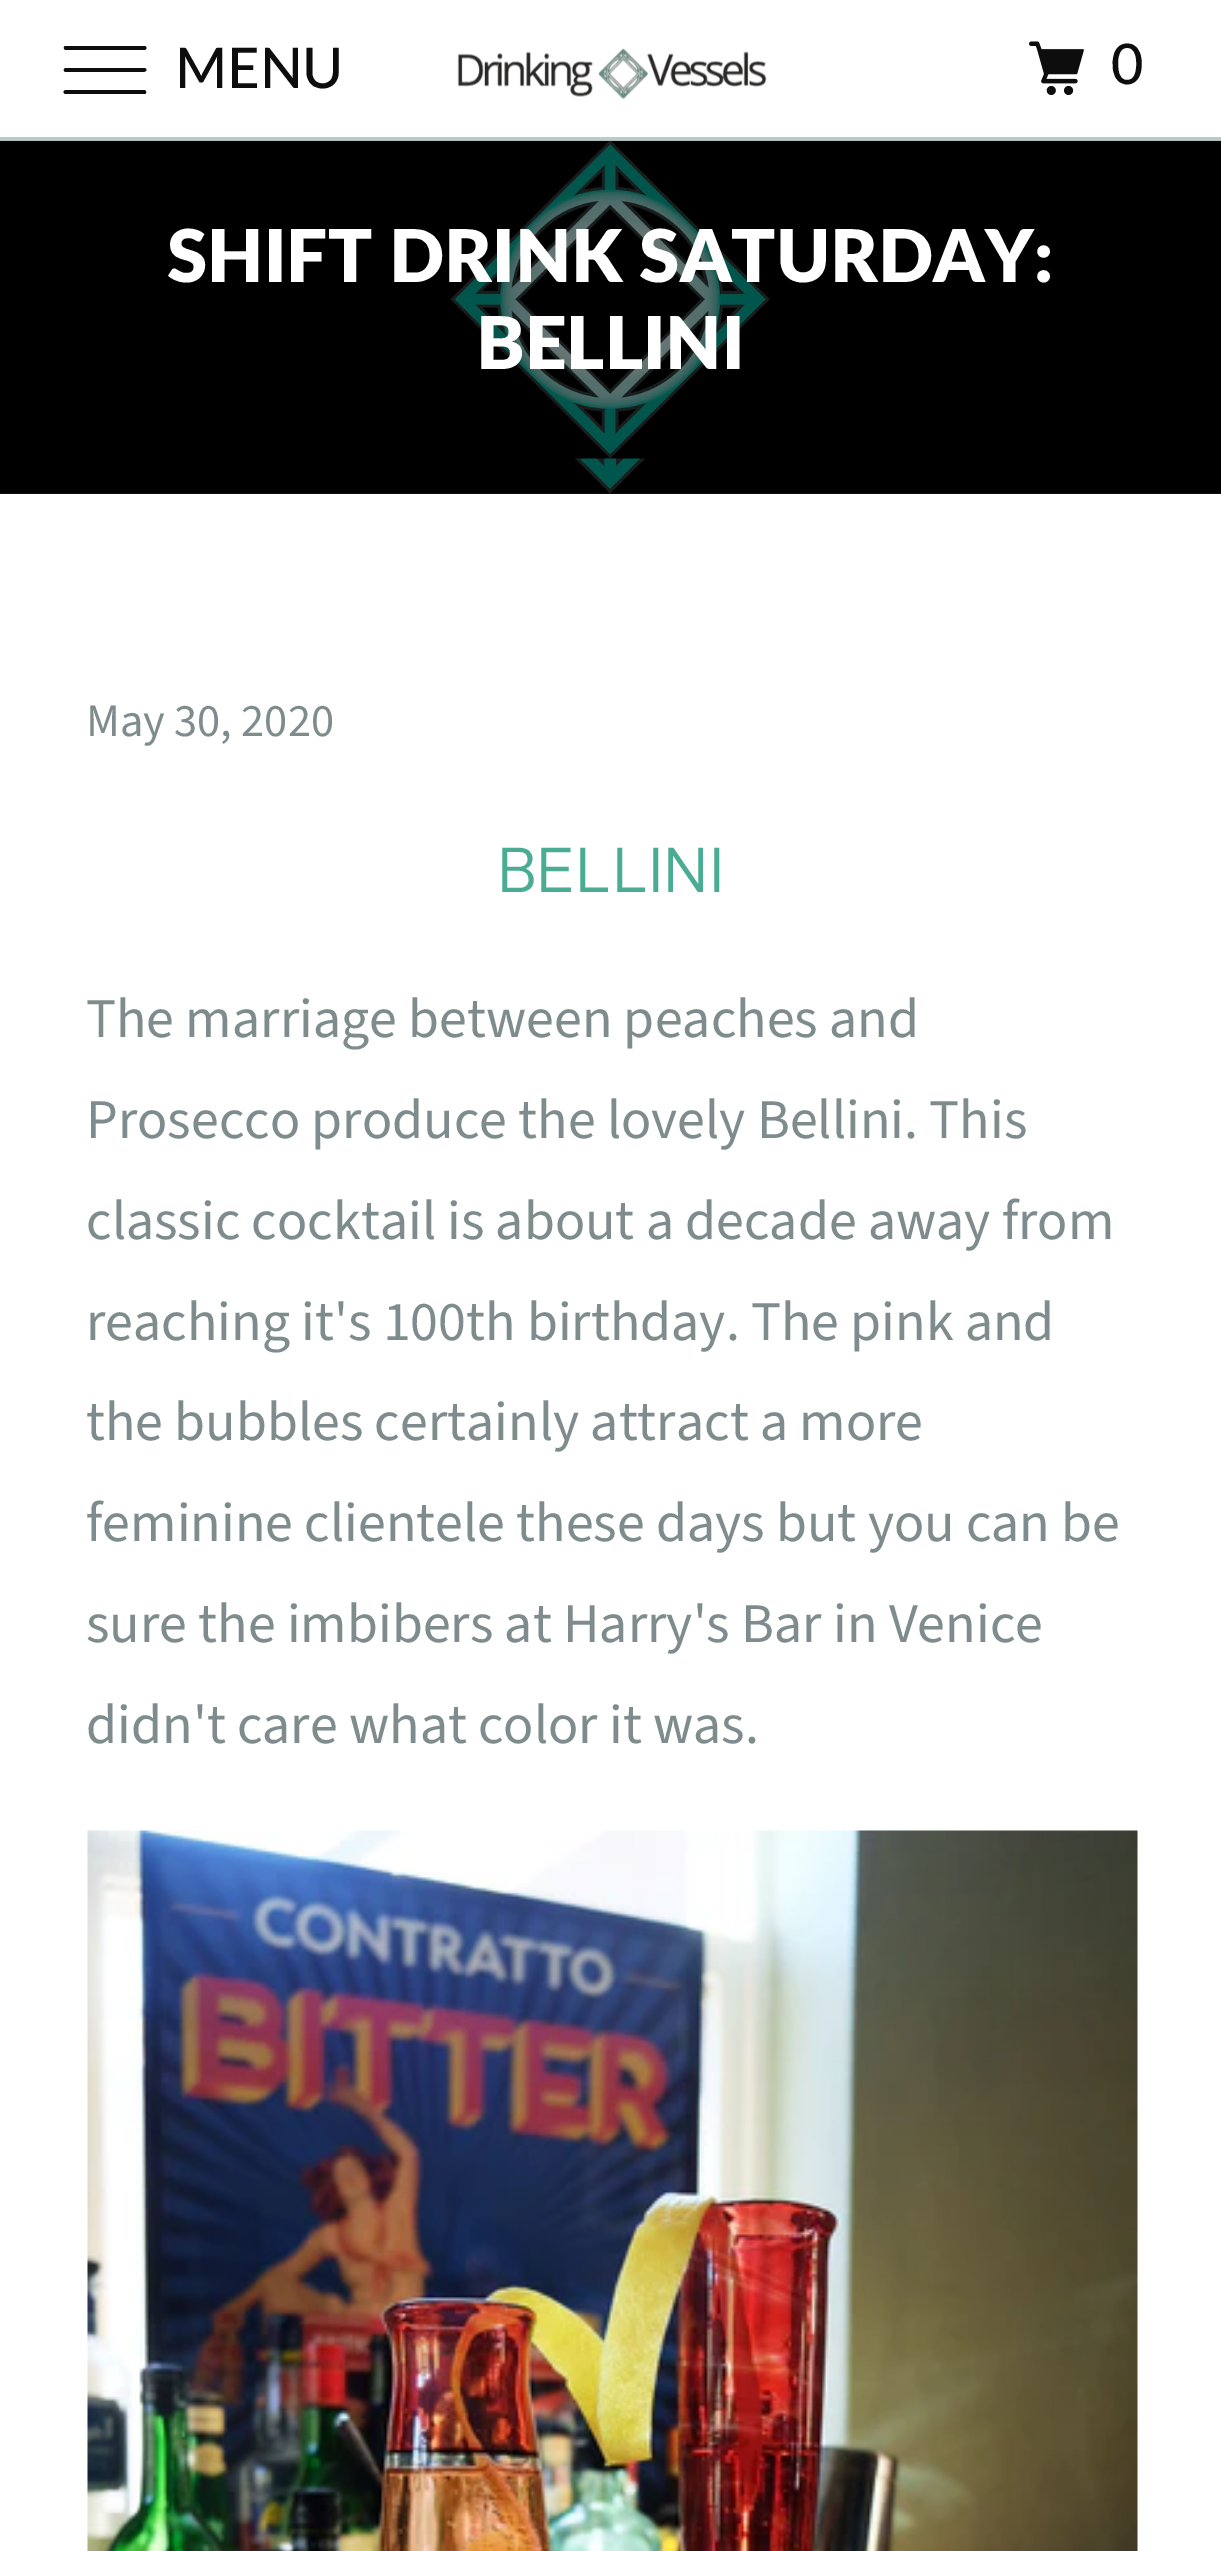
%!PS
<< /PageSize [1221 2551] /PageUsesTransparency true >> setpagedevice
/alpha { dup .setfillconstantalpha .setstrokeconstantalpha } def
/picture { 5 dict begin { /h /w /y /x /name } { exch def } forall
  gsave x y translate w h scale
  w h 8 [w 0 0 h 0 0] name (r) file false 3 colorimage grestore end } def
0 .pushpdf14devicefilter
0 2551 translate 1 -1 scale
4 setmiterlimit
1 setgray
0 0 1221 2551 rectfill
0.106 setgray
0 493 1221 1 rectfill
(img3.rgb) 0 140 1221 354 picture
(img4.rgb) 433 140 354 319 picture
0.95 alpha
0.722 0.776 0.776 setrgbcolor
0 137 1221 4 rectfill
1 alpha
0.051 setgray
newpath 144 68 moveto 66 68 lineto 63 68 63 72 66 72 curveto 144 72 lineto 146 71 lineto 147 70 146 68 144 68 curveto closepath 144 90 moveto 66 90 lineto 63 90 63 93 65 94 curveto 145 94 lineto 147 93 146 90 144 90 curveto closepath 66 50 moveto 144 50 lineto 147 50 147 47 145 46 curveto 65 46 lineto 63 47 64 50 66 50 curveto closepath fill
/Lato-Medium [56 0 0 -56 0 0] selectfont
175 88 moveto (MENU) show
(img1.rgb) 457 48 310 52 picture
(img2.rgb) 1029 41 55 54 picture
1111 84 moveto (0) show
/Lato-ExtraBold [72.75 0 0 -72.75 0 0] selectfont
1 setgray
167 282 moveto (SHIFT DRINK SATURDAY:) show
476 369 moveto (BELLINI) show
/SourceSansPro-Regular [46.5 0 0 -46.5 0 0] selectfont
0.498 0.549 0.553 setrgbcolor
86 736 moveto (May 30, 2020) show
/InstrumentSans-Regular [61.5 0 0 -61.5 0 0] selectfont
0.29 0.678 0.576 setrgbcolor
497 892 moveto (BELLINI) show
/SourceSansPro-Regular [56 0 0 -56 0 0] selectfont
0.498 0.549 0.553 setrgbcolor
86 1037 moveto (The marriage between peaches and) show
86 1138 moveto (Prosecco produce the lovely Bellini. This) show
86 1239 moveto (classic cocktail is about a decade away from) show
86 1340 moveto (reaching it's 100th birthday. The pink and) show
86 1440 moveto (the bubbles certainly attract a more) show
86 1541 moveto (feminine clientele these days but you can be) show
86 1642 moveto (sure the imbibers at Harry's Bar in Venice) show
86 1743 moveto (didn't care what color it was.) show
(img5.rgb) 87 1830 1051 721 picture
.poppdf14devicefilter showpage
